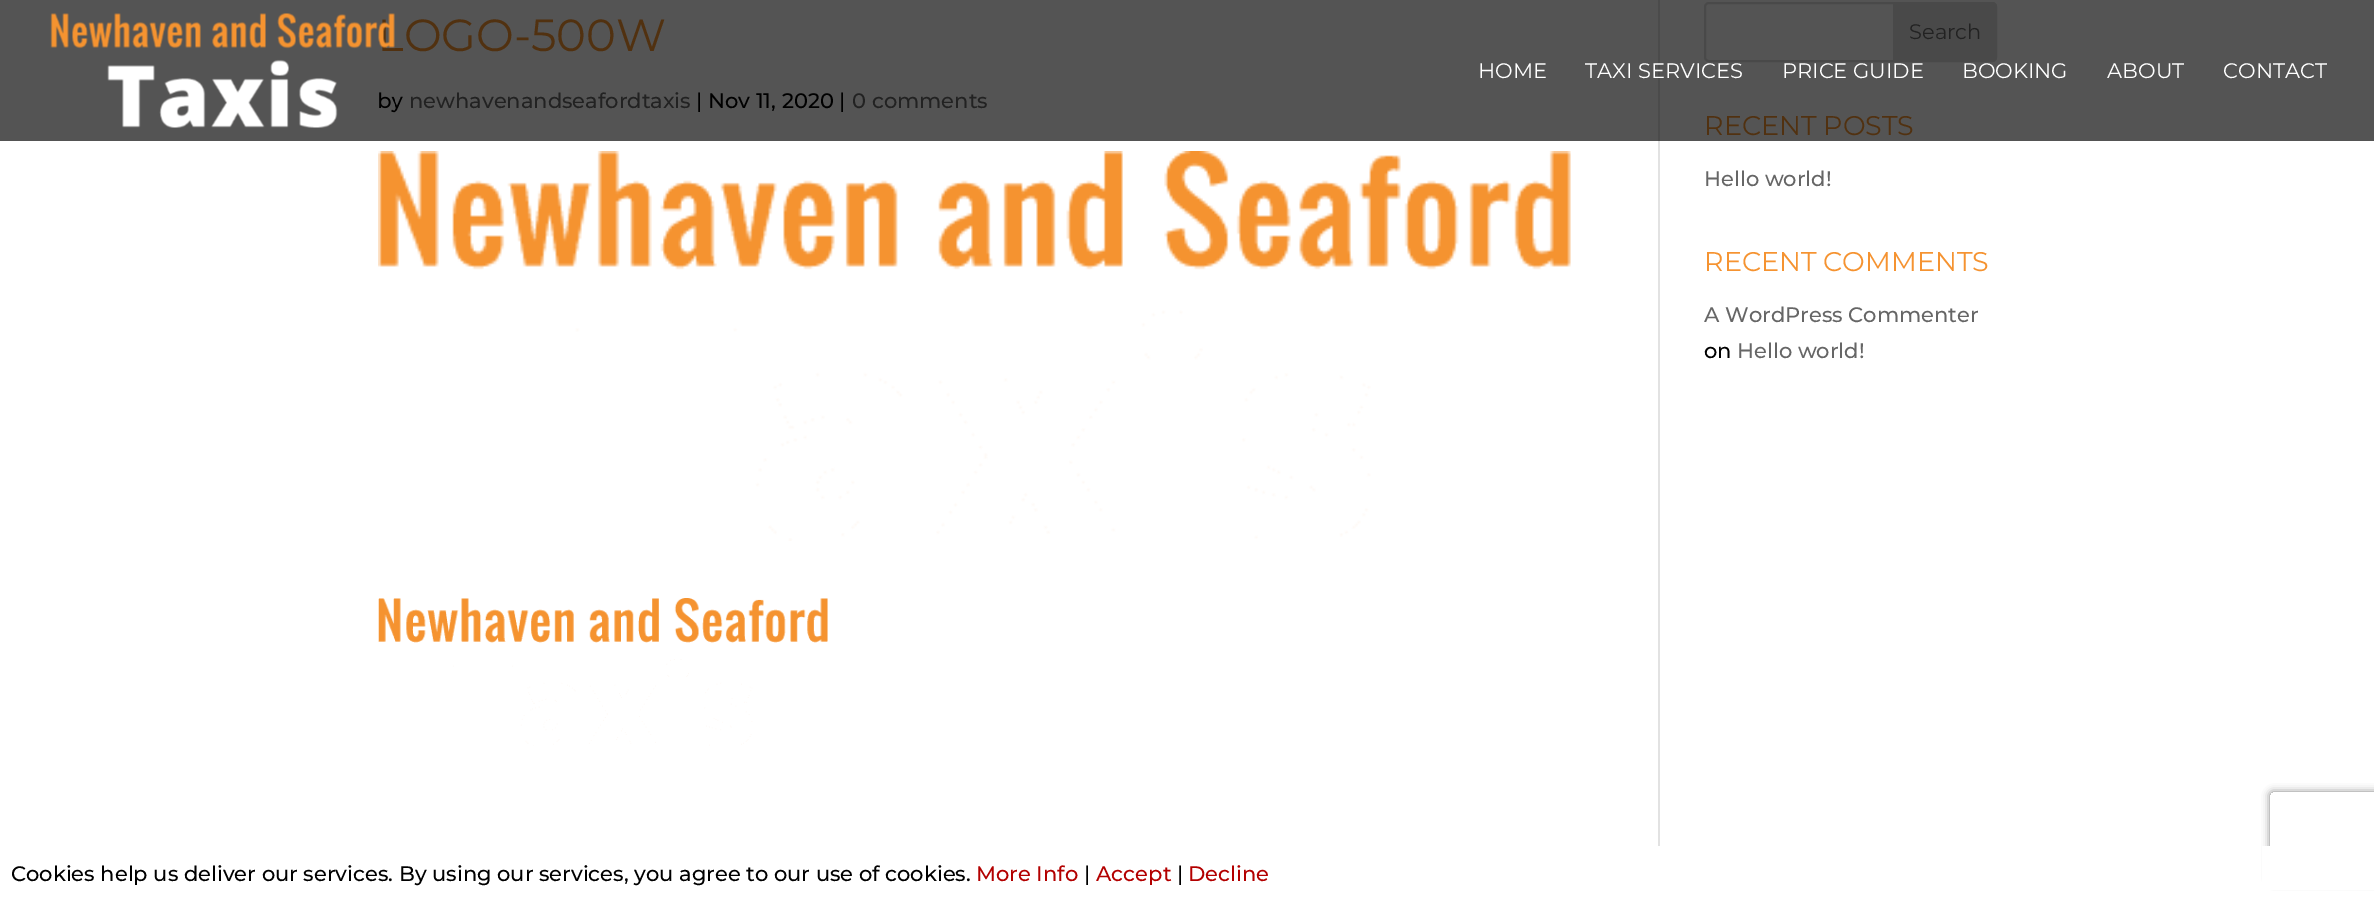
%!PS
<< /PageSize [2374 902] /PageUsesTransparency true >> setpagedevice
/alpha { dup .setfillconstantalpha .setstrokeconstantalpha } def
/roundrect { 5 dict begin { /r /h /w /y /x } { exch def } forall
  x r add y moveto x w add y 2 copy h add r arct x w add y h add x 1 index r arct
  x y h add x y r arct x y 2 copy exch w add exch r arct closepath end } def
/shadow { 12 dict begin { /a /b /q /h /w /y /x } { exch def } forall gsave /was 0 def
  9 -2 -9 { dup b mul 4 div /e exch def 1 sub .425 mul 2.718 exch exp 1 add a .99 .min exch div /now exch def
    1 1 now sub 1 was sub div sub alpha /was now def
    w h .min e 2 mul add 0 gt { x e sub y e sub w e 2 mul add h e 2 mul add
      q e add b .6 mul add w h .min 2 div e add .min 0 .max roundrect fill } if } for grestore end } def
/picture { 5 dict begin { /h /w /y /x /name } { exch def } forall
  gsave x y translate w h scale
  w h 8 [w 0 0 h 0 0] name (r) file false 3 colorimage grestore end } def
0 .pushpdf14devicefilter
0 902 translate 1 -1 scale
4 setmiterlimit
1 setgray
0 0 2374 902 rectfill
0.329 setgray
0 0 2374 141 rectfill
0.886 setgray
1658 141 2 705 rectfill
0.294 setgray
1658 0 2 141 rectfill
/Montserrat-Thin [45 0 0 -45 0 0] selectfont
0.318 0.192 0.063 setrgbcolor
377 51 moveto (LOGO-500W) show
/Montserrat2-Thin [21 0 0 -21 0 0] selectfont
0 setgray
377 108 moveto (by) show
0.133 setgray
409 108 moveto (newhavenandseafordtaxis) show
0 setgray
696 108 moveto (| Nov 11, 2020 |) show
0.133 setgray
852 108 moveto (0 comments) show
(img1.rgb) 378 151 1193 390 picture
(img2.rgb) 378 598 450 148 picture
0.286 setgray
2 setlinewidth
1705 3 291 58 4 roundrect stroke
newpath 1893 2 moveto 1992 2 lineto 1995 2 1997 4 1997 7 curveto 1997 57 lineto 1997 60 1995 62 1992 62 curveto 1893 62 lineto closepath fill
/Montserrat-Thin [21 0 0 -21 0 0] selectfont
0.133 setgray
1909 39 moveto (Search) show
/Montserrat-Thin [27 0 0 -27 0 0] selectfont
0.318 0.192 0.063 setrgbcolor
1704 135 moveto (RECENT POSTS) show
/Montserrat2-Thin [21 0 0 -21 0 0] selectfont
0.4 setgray
1704 186 moveto (Hello world!) show
/Montserrat-Thin [27 0 0 -27 0 0] selectfont
0.961 0.576 0.192 setrgbcolor
1704 271 moveto (RECENT COMMENTS) show
/Montserrat2-Thin [21 0 0 -21 0 0] selectfont
0.4 setgray
1704 322 moveto (A WordPress Commenter) show
0 setgray
1704 358 moveto (on) show
0.4 setgray
1737 358 moveto (Hello world!) show
(img3.rgb) 50 13 345 115 picture
/Montserrat-Thin [21 0 0 -21 0 0] selectfont
1 setgray
1478 78 moveto (HOME) show
1585 78 moveto (TAXI SERVICES) show
1782 78 moveto (PRICE GUIDE) show
1962 78 moveto (BOOKING) show
2107 78 moveto (ABOUT) show
2223 78 moveto (CONTACT) show
gsave
newpath 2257 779 moveto 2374 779 lineto 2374 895 lineto 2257 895 lineto closepath 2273 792 moveto 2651 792 lineto 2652.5 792 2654 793.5 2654 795 curveto 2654 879 lineto 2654 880.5 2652.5 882 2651 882 curveto 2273 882 lineto 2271.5 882 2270 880.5 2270 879 curveto 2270 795 lineto 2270 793.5 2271.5 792 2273 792 curveto closepath eoclip newpath
0.502 setgray
2270 792 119 90 3 4 1 shadow
grestore
2262 846 112 44 rectfill
/Montserrat2-Thin [21 0 0 -21 0 0] selectfont
0 setgray
11 881 moveto (Cookies help us deliver our services. By using our services, you agree to our use of cookies.) show
0.702 0 0 setrgbcolor
976 881 moveto (More Info) show
0 setgray
1084 881 moveto (|) show
0.702 0 0 setrgbcolor
1096 881 moveto (Accept) show
0 setgray
1177 881 moveto (|) show
0.702 0 0 setrgbcolor
1188 881 moveto (Decline) show
.poppdf14devicefilter showpage
